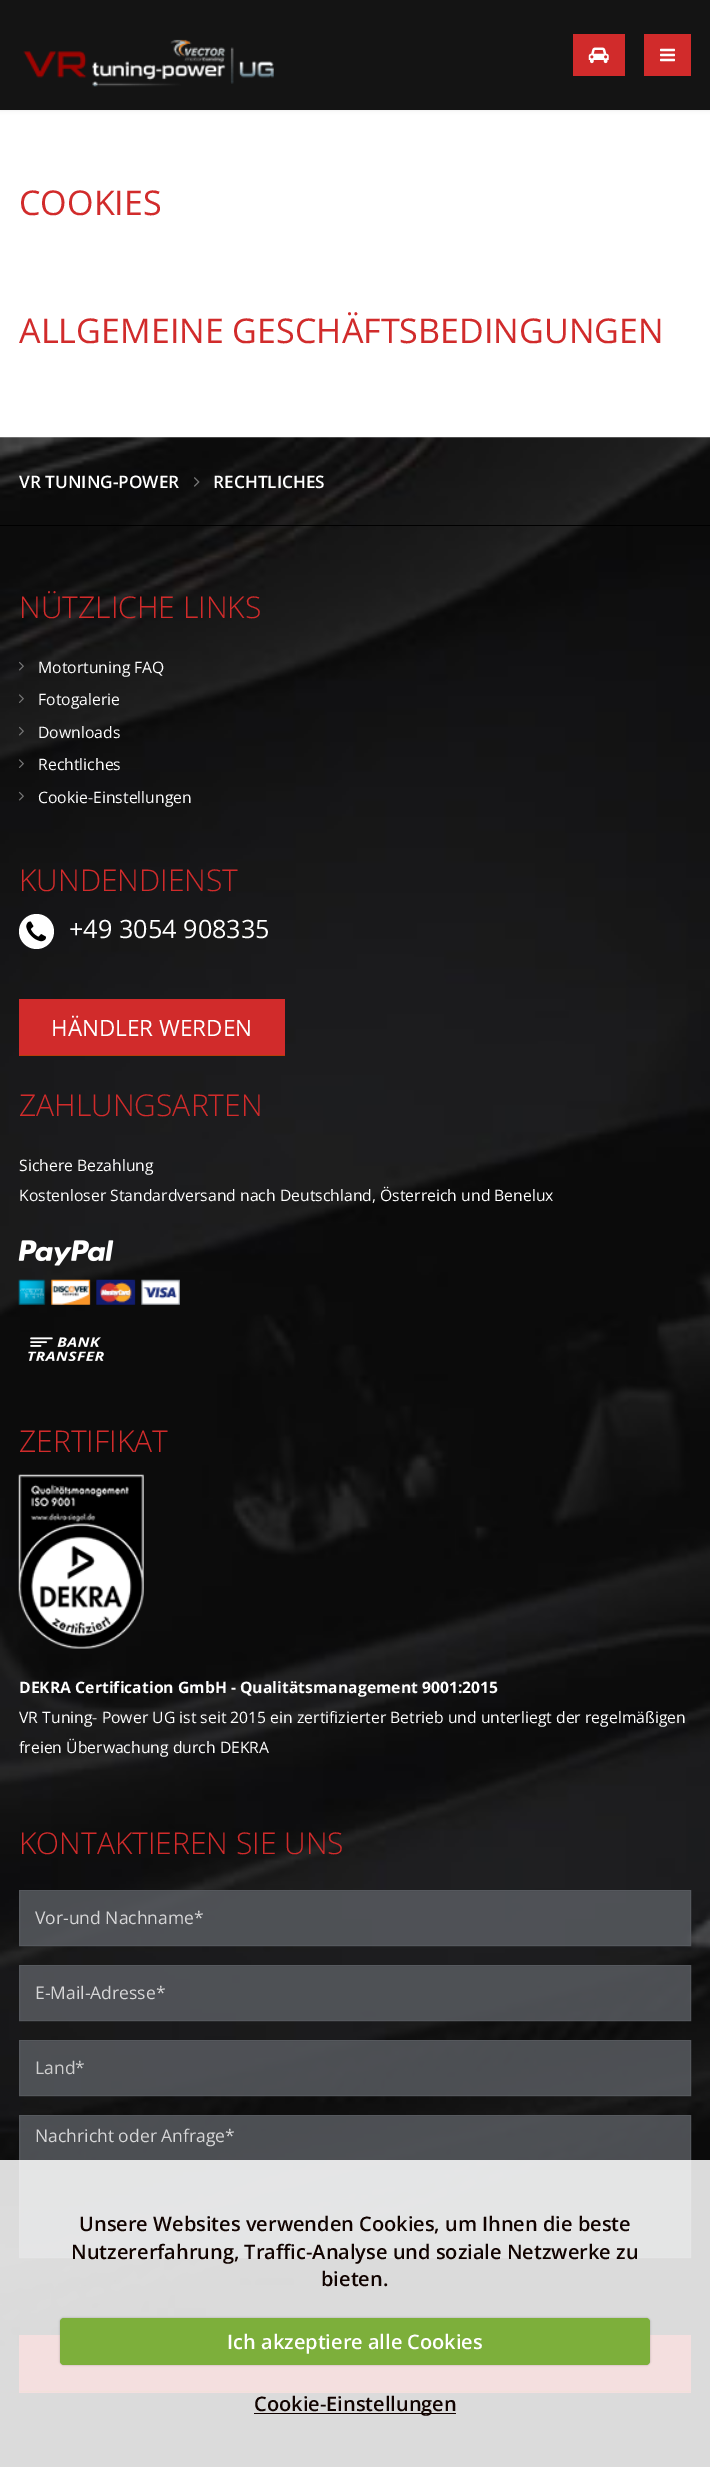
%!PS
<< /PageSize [710 2467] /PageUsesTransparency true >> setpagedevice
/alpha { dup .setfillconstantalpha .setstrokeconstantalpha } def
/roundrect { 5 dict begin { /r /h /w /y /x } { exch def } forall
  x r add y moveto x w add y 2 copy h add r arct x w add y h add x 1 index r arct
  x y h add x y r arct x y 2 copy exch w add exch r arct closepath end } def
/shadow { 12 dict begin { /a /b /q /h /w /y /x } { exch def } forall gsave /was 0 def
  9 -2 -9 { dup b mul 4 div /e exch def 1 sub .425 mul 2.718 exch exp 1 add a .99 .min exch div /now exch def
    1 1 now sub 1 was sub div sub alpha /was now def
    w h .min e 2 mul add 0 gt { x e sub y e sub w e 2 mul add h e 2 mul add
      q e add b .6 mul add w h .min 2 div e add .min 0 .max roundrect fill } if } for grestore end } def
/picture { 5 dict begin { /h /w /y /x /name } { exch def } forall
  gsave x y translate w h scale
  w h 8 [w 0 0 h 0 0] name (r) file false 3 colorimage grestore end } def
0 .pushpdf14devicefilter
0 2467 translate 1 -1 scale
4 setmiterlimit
1 setgray
0 0 710 2467 rectfill
0 setgray
0 -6 710 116 0 2 0.1 shadow
0.078 setgray
0 0 710 110 rectfill
(img1.rgb) 23 39 251 48 picture
0.82 0.169 0.169 setrgbcolor
573 34 52 42 rectfill
(img2.rgb) 588 47 21 17 picture
644 34 47 42 rectfill
(img3.rgb) 660 48 15 14 picture
/OpenSans-Regular [34.1 0 0 -34.1 0 0] selectfont
19 215 moveto (COOKIES) show
19 343 moveto (ALLGEMEINE GESCHÄFTSBEDINGUNGEN) show
(img4.rgb) 0 437 710 2030 picture
0 setgray
0 525 710 1 rectfill
/OpenSans-SemiBold [17.25 0 0 -17.25 0 0] selectfont
1 setgray
19 488 moveto (VR TUNING-POWER) show
(img5.rgb) 194 477 6 10 picture
213 488 moveto (RECHTLICHES) show
/OpenSans-Light [30 0 0 -30 0 0] selectfont
0.82 0.169 0.169 setrgbcolor
19 618 moveto (NÜTZLICHE LINKS) show
(img6.rgb) 19 661 5 10 picture
/OpenSans-Regular [15.75 0 0 -15.75 0 0] selectfont
1 setgray
38 673 moveto (Motortuning FAQ) show
(img7.rgb) 19 694 5 9 picture
38 705 moveto (Fotogalerie) show
(img8.rgb) 19 726 5 10 picture
38 738 moveto (Downloads) show
(img9.rgb) 18 759 6 9 picture
38 770 moveto (Rechtliches) show
(img10.rgb) 18 791 6 10 picture
38 803 moveto (Cookie-Einstellungen) show
/OpenSans-Light [30 0 0 -30 0 0] selectfont
0.82 0.169 0.169 setrgbcolor
19 891 moveto (KUNDENDIENST) show
1 setgray
newpath 36.5 931.5 17.5 0 360 arc closepath fill
(img11.rgb) 26 921 20 21 picture
/OpenSans-Regular [25.25 0 0 -25.25 0 0] selectfont
69 938 moveto (+49 3054 908335) show
0.82 0.169 0.169 setrgbcolor
20 999 265 56 rectfill
0.722 0.243 0.035 setrgbcolor
19 1055 266 1 rectfill
0.82 0.169 0.169 setrgbcolor
19 999 1 57 rectfill
/OpenSans-Regular [22.5 0 0 -22.5 0 0] selectfont
1 setgray
51 1036 moveto (HÄNDLER WERDEN) show
/OpenSans-Light [30 0 0 -30 0 0] selectfont
0.82 0.169 0.169 setrgbcolor
19 1116 moveto (ZAHLUNGSARTEN) show
/OpenSans-Regular [15.75 0 0 -15.75 0 0] selectfont
1 setgray
19 1171 moveto (Sichere Bezahlung) show
19 1201 moveto (Kostenloser Standardversand nach Deutschland, Österreich und Benelux) show
(img12.rgb) 18 1240 96 26 picture
(img13.rgb) 18 1279 162 26 picture
(img14.rgb) 28 1337 76 24 picture
/OpenSans-Light [30 0 0 -30 0 0] selectfont
0.82 0.169 0.169 setrgbcolor
19 1452 moveto (ZERTIFIKAT) show
(img15.rgb) 18 1474 126 175 picture
/OpenSans-Bold [15.75 0 0 -15.75 0 0] selectfont
1 setgray
19 1693 moveto (DEKRA Certification GmbH - Qualitätsmanagement 9001:2015) show
/OpenSans-Regular [15.75 0 0 -15.75 0 0] selectfont
19 1723 moveto (VR Tuning- Power UG ist seit 2015 ein zertifizierter Betrieb und unterliegt der regelmäßigen) show
19 1753 moveto (freien Überwachung durch DEKRA) show
/OpenSans-Light [30 0 0 -30 0 0] selectfont
0.82 0.169 0.169 setrgbcolor
19 1854 moveto (KONTAKTIEREN SIE UNS) show
0.85 alpha
0.341 0.353 0.373 setrgbcolor
19 1890 672 56 rectfill
0.06 alpha
0 setgray
20 1891 670 1 rectfill
0.85 alpha
0.341 0.353 0.373 setrgbcolor
19.5 1890.5 671 55 rectstroke
/OpenSans-Regular [17.5 0 0 -17.5 0 0] selectfont
1 alpha
0.839 0.839 0.843 setrgbcolor
35 1924 moveto (Vor-und Nachname*) show
0.85 alpha
0.341 0.353 0.373 setrgbcolor
19 1965 672 56 rectfill
1 alpha
0.286 0.294 0.314 setrgbcolor
20 1966 670 1 rectfill
0.85 alpha
0.341 0.353 0.373 setrgbcolor
19.5 1965.5 671 55 rectstroke
1 alpha
0.839 0.839 0.843 setrgbcolor
35 1999 moveto (E-Mail-Adresse*) show
0.85 alpha
0.341 0.353 0.373 setrgbcolor
19 2040 672 56 rectfill
0.06 alpha
0 setgray
20 2041 670 1 rectfill
0.85 alpha
0.341 0.353 0.373 setrgbcolor
19.5 2040.5 671 55 rectstroke
1 alpha
0.808 setgray
35 2074 moveto (Land*) show
0.85 alpha
0.341 0.353 0.373 setrgbcolor
19 2115 672 143 rectfill
0.06 alpha
0 setgray
20 2116 670 1 rectfill
0.85 alpha
0.341 0.353 0.373 setrgbcolor
19.5 2115.5 671 142 rectstroke
1 alpha
0.839 0.839 0.843 setrgbcolor
35 2142 moveto (Nachricht oder Anfrage*) show
0.702 0.149 0.149 setrgbcolor
20 2335 671 58 rectfill
0.62 0.212 0.035 setrgbcolor
19 2391 672 1 rectfill
0.702 0.149 0.149 setrgbcolor
19 2335 1 58 rectfill
0.85 alpha
1 setgray
0 2160 710 307 rectfill
/OpenSans-SemiBold [20 0 0 -20 0 0] selectfont
1 alpha
0.067 0.012 0 setrgbcolor
79 2231 moveto (Unsere Websites verwenden Cookies, um Ihnen die beste) show
71 2259 moveto (Nutzererfahrung, Traffic-Analyse und soziale Netzwerke zu) show
321 2286 moveto (bieten.) show
0 setgray
60 2318 590 47 4 1 0.25 shadow
0.49 0.686 0.231 setrgbcolor
60 2318 590 47 4 roundrect fill
1 setgray
227 2349 moveto (Ich akzeptiere alle Cookies) show
0.067 0.012 0 setrgbcolor
254 2413 202 1 rectfill
254 2411 moveto (Cookie-Einstellungen) show
.poppdf14devicefilter showpage
